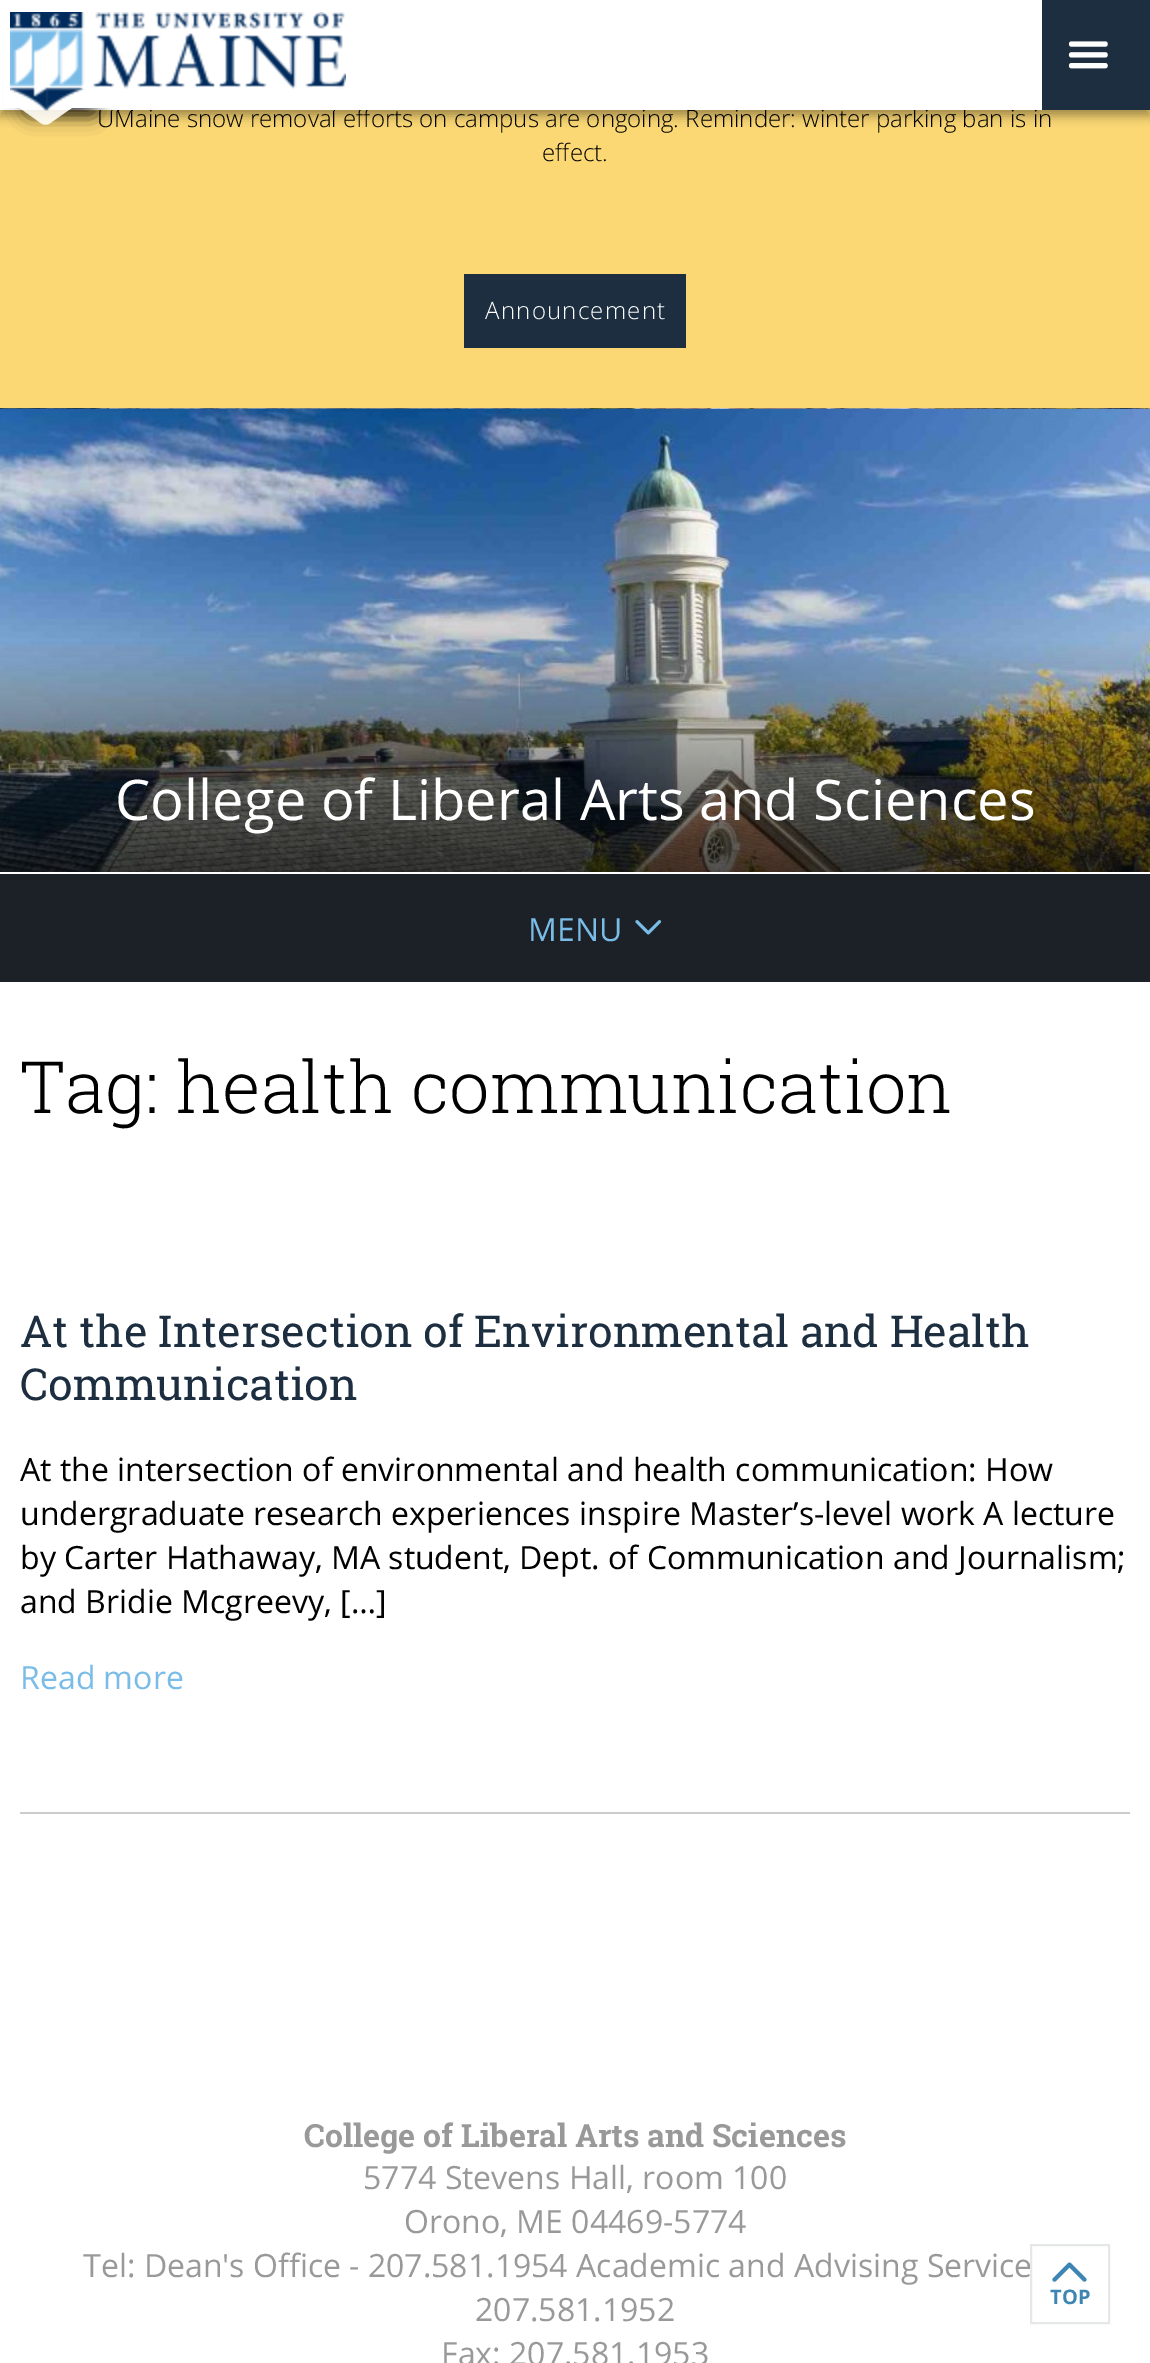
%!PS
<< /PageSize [1150 2363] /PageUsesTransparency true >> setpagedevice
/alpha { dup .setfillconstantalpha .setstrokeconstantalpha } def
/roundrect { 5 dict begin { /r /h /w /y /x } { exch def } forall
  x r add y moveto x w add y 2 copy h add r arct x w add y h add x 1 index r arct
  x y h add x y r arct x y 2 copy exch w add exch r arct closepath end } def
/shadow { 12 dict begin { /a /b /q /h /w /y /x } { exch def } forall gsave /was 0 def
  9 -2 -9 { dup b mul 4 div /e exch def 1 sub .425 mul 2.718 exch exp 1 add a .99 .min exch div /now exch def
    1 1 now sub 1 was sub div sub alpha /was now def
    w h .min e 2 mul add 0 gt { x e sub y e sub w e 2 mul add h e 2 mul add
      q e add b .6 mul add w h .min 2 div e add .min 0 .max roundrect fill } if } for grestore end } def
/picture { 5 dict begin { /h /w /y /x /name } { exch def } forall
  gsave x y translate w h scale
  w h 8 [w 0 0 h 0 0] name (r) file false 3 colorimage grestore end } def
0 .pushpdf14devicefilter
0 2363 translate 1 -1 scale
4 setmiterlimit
1 setgray
0 0 1150 2363 rectfill
0.984 0.847 0.455 setrgbcolor
0 110 1150 298 rectfill
0 setgray
0 6 1150 110 0 5 0.35 shadow
/OpenSans-Light [24 0 0 -24 0 0] selectfont
97 127 moveto (UMaine snow removal efforts on campus are ongoing. Reminder: winter parking ban is in) show
1 setgray
0 0 1042 110 rectfill
gsave
newpath 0 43 moveto 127 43 lineto 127 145 lineto 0 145 lineto closepath 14 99.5 moveto 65 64 lineto 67 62.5 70 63 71.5 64 curveto 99.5 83.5 lineto 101.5 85 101.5 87 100 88.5 curveto 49 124 lineto 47 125.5 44 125 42.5 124 curveto 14.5 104.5 lineto 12.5 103 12.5 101 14 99.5 curveto closepath eoclip newpath
0 setgray
26 74 70 40 4 10 0.85 shadow
grestore
0.85 alpha
newpath 14 100 moveto 65 64 lineto 67 63 70 63 72 64 curveto 100 84 lineto 102 85 102 87 100 88 curveto 49 124 lineto 47 125 44 125 42 124 curveto 14 104 lineto 12 103 12 101 14 100 curveto closepath fill
1 alpha
4 51 114 57 rectfill
(img1.rgb) 10 12 336 99 picture
0.11 0.18 0.247 setrgbcolor
1042 0 108 110 rectfill
(img2.rgb) 1068 41 40 28 picture
0 setgray
542 161 moveto (effect.) show
0.11 0.18 0.247 setrgbcolor
464 274 222 74 rectfill
1 setgray
485 319 moveto 1.25 0 (Announcement) ashow
0.11 0.129 0.157 setrgbcolor
0 874 1150 108 rectfill
(img3.rgb) 0 408 1150 464 picture
/OpenSans-Regular [56 0 0 -56 0 0] selectfont
1 setgray
115 820 moveto (College of Liberal Arts and Sciences) show
/OpenSans-Regular [32 0 0 -32 0 0] selectfont
0.475 0.737 0.906 setrgbcolor
528 941 moveto (MENU) show
(img4.rgb) 635 920 27 15 picture
/RobotoSlab-Light [72 0 0 -72 0 0] selectfont
0 setgray
20 1113 moveto (Tag: health communication) show
0.8 setgray
20 1812 1110 2 rectfill
/RobotoSlab-Regular [44 0 0 -44 0 0] selectfont
0.11 0.18 0.247 setrgbcolor
20 1347 moveto (At the Intersection of Environmental and Health) show
20 1400 moveto (Communication) show
/OpenSans-Regular [32 0 0 -32 0 0] selectfont
0 setgray
20 1481 moveto (At the intersection of environmental and health communication: How) show
20 1525 moveto (undergraduate research experiences inspire Master’s-level work A lecture) show
20 1569 moveto (by Carter Hathaway, MA student, Dept. of Communication and Journalism;) show
20 1613 moveto (and Bridie Mcgreevy, […]) show
0.475 0.737 0.906 setrgbcolor
20 1689 moveto (Read more) show
/RobotoSlab-Bold [32 0 0 -32 0 0] selectfont
0.6 setgray
304 2147 moveto (College of Liberal Arts and Sciences) show
/OpenSans-Regular [32 0 0 -32 0 0] selectfont
363 2189 moveto (5774 Stevens Hall, room 100) show
404 2233 moveto (Orono, ME 04469-5774) show
83 2277 moveto (Tel: Dean's Office - 207.581.1954 Academic and Advising Service) show
475 2321 moveto (207.581.1952) show
441 2365 moveto (Fax: 207.581.1953) show
0.902 0.906 0.91 setrgbcolor
2 setlinewidth
1031 2245 78 78 rectstroke
(img5.rgb) 1052 2262 35 20 picture
/OpenSans-Bold [20 0 0 -20 0 0] selectfont
0.239 0.522 0.702 setrgbcolor
1050 2304 moveto (TOP) show
.poppdf14devicefilter showpage
